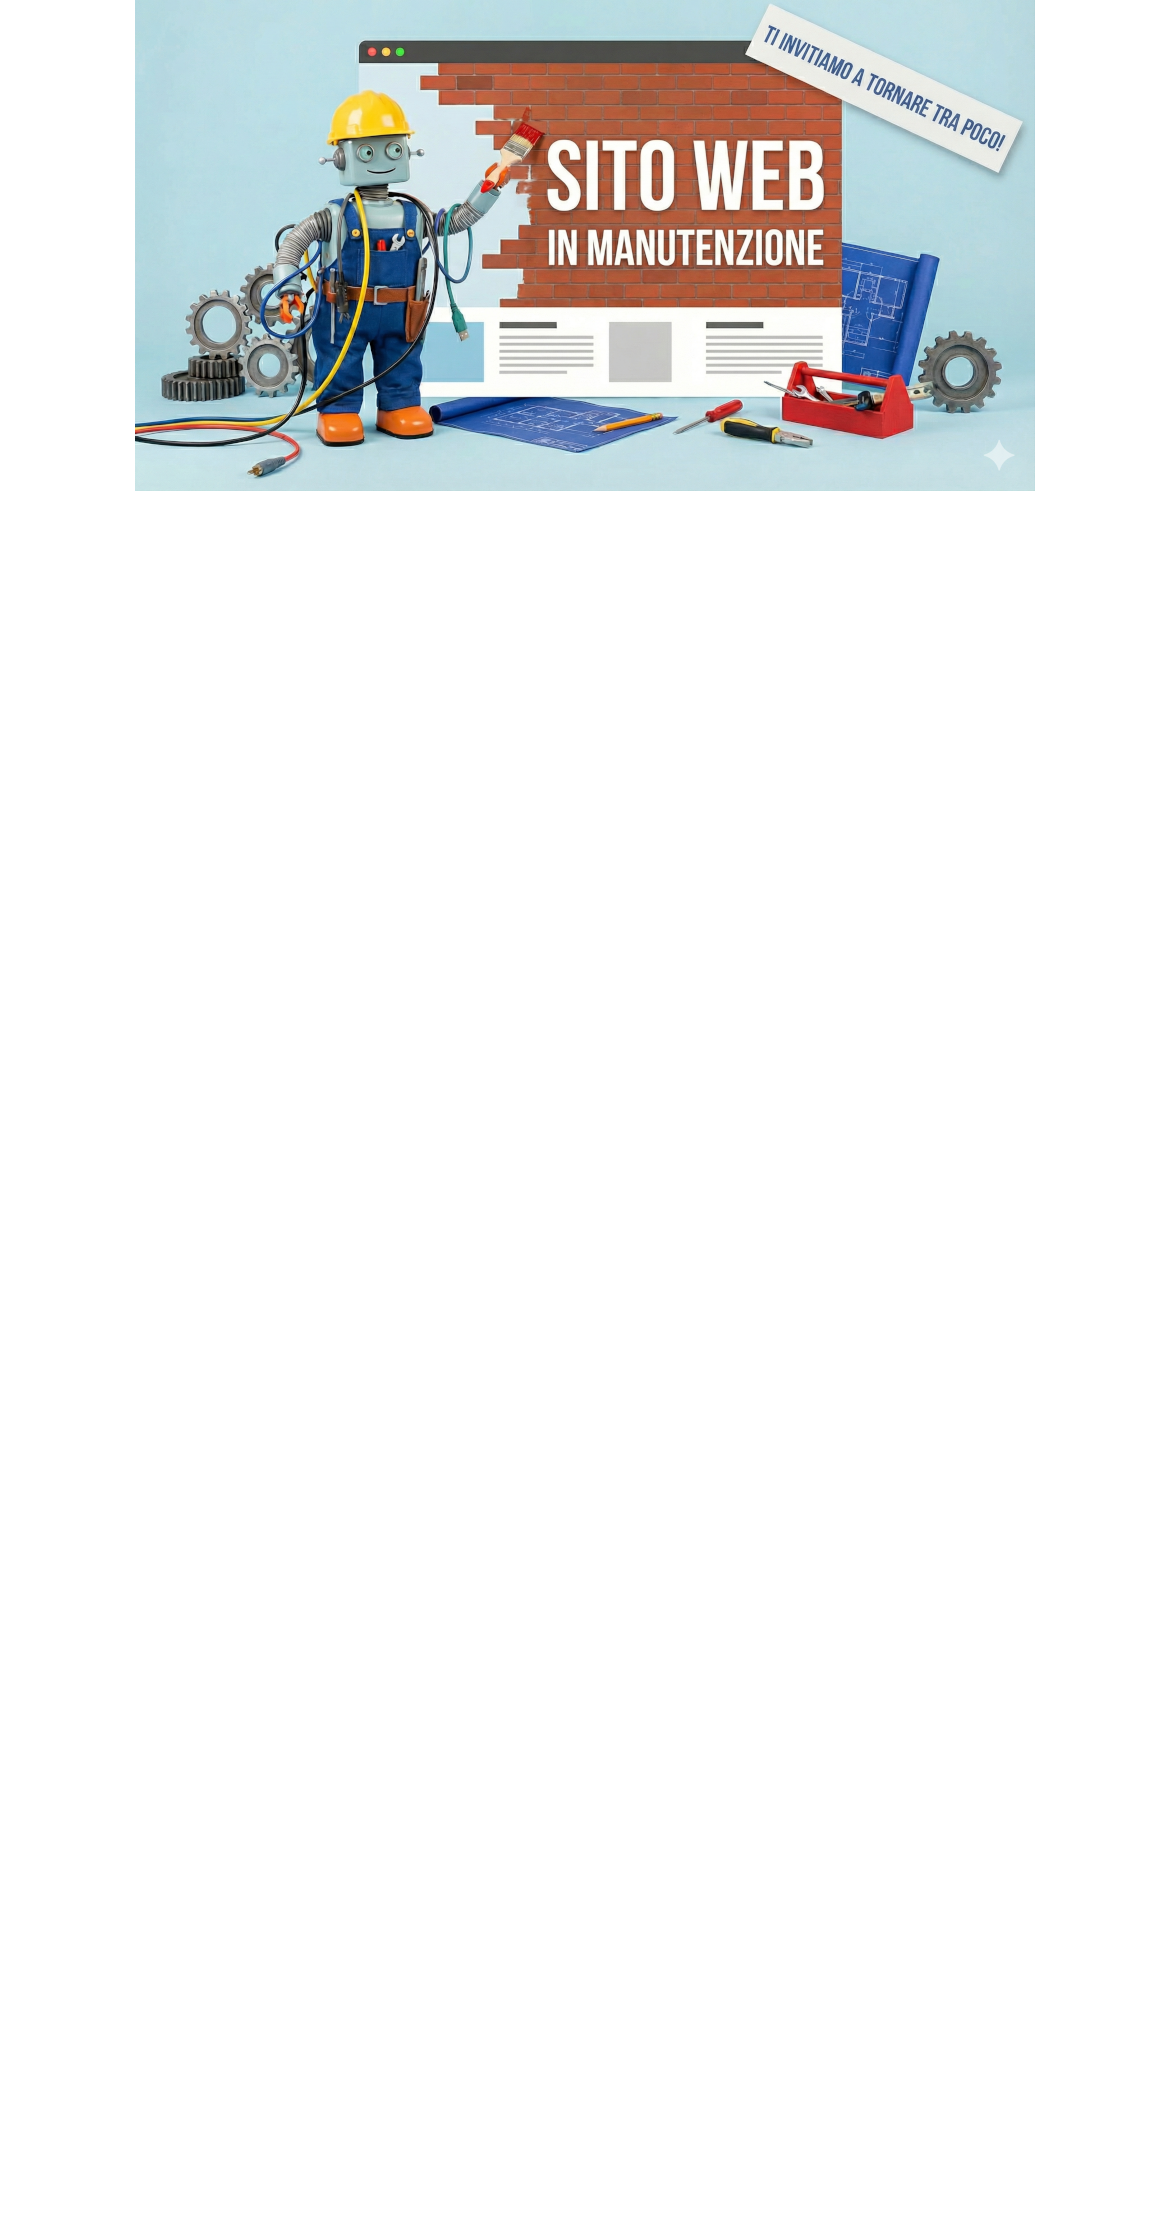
%!PS
<< /PageSize [1170 2217] >> setpagedevice
/picture { 5 dict begin { /h /w /y /x /name } { exch def } forall
  gsave x y translate w h scale
  w h 8 [w 0 0 h 0 0] name (r) file false 3 colorimage grestore end } def
0 2217 translate 1 -1 scale
4 setmiterlimit
1 setgray
0 0 1170 2217 rectfill
(img1.rgb) 135 0 900 491 picture
showpage
